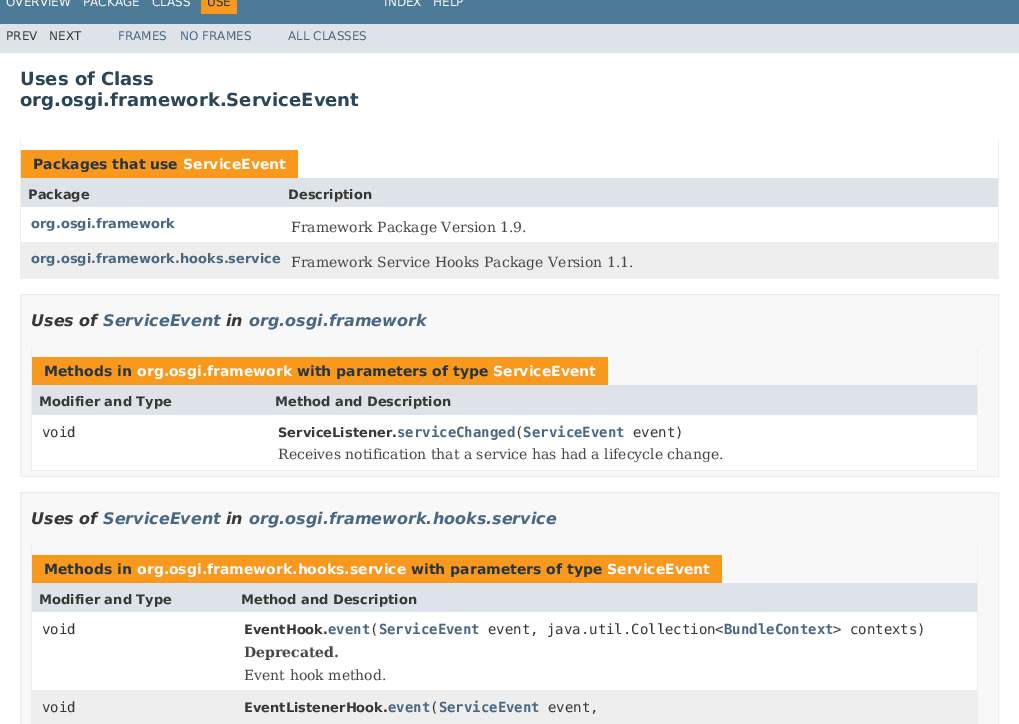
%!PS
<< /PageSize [1019 724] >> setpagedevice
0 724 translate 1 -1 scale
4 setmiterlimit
1 setgray
0 0 1019 724 rectfill
0.302 0.478 0.592 setrgbcolor
0 0 1019 24 rectfill
/DejaVuSans-Regular [12 0 0 -12 0 0] selectfont
1 setgray
6 6 moveto (OVERVIEW) show
83 6 moveto (PACKAGE) show
152 6 moveto (CLASS) show
0.973 0.596 0.114 setrgbcolor
201 0 36 14 rectfill
0.145 0.204 0.255 setrgbcolor
207 6 moveto (USE) show
1 setgray
384 6 moveto (INDEX) show
433 6 moveto (HELP) show
0.871 0.89 0.914 setrgbcolor
0 24 1019 29 rectfill
0.208 0.22 0.2 setrgbcolor
6 40 moveto (PREV) show
49 40 moveto (NEXT) show
0.29 0.404 0.51 setrgbcolor
118 40 moveto (FRAMES) show
180 40 moveto (NO FRAMES) show
288 40 moveto (ALL CLASSES) show
/DejaVuSans-Bold [18 0 0 -18 0 0] selectfont
0.173 0.271 0.341 setrgbcolor
20 85 moveto (Uses of Class) show
20 106 moveto (org.osgi.framework.ServiceEvent) show
0.933 setgray
998 140 1 139 rectfill
20 278 979 1 rectfill
20 140 1 139 rectfill
0.973 0.596 0.114 setrgbcolor
21 150 277 28 rectfill
/DejaVuSans-Bold [14 0 0 -14 0 0] selectfont
0.145 0.204 0.255 setrgbcolor
33 169 moveto (Packages that use) show
1 setgray
183 169 moveto (ServiceEvent) show
0.871 0.89 0.914 setrgbcolor
21 178 977 29 rectfill
/DejaVuSans-Bold [13 0 0 -13 0 0] selectfont
0.208 0.22 0.2 setrgbcolor
28 199 moveto (Package) show
288 199 moveto (Description) show
0.29 0.404 0.51 setrgbcolor
31 228 moveto (org.osgi.framework) show
/DejaVuSerif-Regular [14 0 0 -14 0 0] selectfont
0.278 setgray
291 232 moveto (Framework Package Version 1.9.) show
0.933 0.933 0.937 setrgbcolor
21 242 977 36 rectfill
/DejaVuSans-Bold [13 0 0 -13 0 0] selectfont
0.29 0.404 0.51 setrgbcolor
31 263 moveto (org.osgi.framework.hooks.service) show
/DejaVuSerif-Regular [14 0 0 -14 0 0] selectfont
0.278 setgray
291 267 moveto (Framework Service Hooks Package Version 1.1.) show
0.973 setgray
newpath 20.5 294.5 moveto 998.5 294.5 lineto 998.5 476.5 lineto 20.5 476.5 lineto closepath gsave fill grestore
0.929 setgray
stroke
/DejaVuSans-BoldItalic [16 0 0 -16 0 0] selectfont
0.208 0.22 0.2 setrgbcolor
31 326 moveto (Uses of) show
0.29 0.404 0.51 setrgbcolor
103 326 moveto (ServiceEvent) show
0.208 0.22 0.2 setrgbcolor
226 326 moveto (in) show
0.29 0.404 0.51 setrgbcolor
249 326 moveto (org.osgi.framework) show
0.933 setgray
977 347 1 124 rectfill
31 470 947 1 rectfill
31 347 1 124 rectfill
0.973 0.596 0.114 setrgbcolor
32 357 576 28 rectfill
/DejaVuSans-Bold [14 0 0 -14 0 0] selectfont
0.145 0.204 0.255 setrgbcolor
44 376 moveto (Methods in) show
1 setgray
137 376 moveto (org.osgi.framework) show
0.145 0.204 0.255 setrgbcolor
297 376 moveto (with parameters of type) show
1 setgray
493 376 moveto (ServiceEvent) show
0.871 0.89 0.914 setrgbcolor
32 385 945 30 rectfill
/DejaVuSans-Bold [13 0 0 -13 0 0] selectfont
0.208 0.22 0.2 setrgbcolor
39 406 moveto (Modifier and Type) show
275 406 moveto (Method and Description) show
1 setgray
32 415 945 55 rectfill
/DejaVuSansMono-Regular [14 0 0 -14 0 0] selectfont
0.208 0.22 0.2 setrgbcolor
42 437 moveto (void) show
/DejaVuSansMono-Bold [14 0 0 -14 0 0] selectfont
0.29 0.404 0.51 setrgbcolor
397 437 moveto (serviceChanged ServiceEvent) show
/DejaVuSans-Bold [13 0 0 -13 0 0] selectfont
0.208 0.22 0.2 setrgbcolor
278 437 moveto (ServiceListener.) show
/DejaVuSansMono-Regular [14 0 0 -14 0 0] selectfont
515 437 moveto (\() show
633 437 moveto (event\)) show
/DejaVuSerif-Regular [14 0 0 -14 0 0] selectfont
0.278 setgray
278 459 moveto (Receives notification that a service has had a lifecycle change.) show
0.973 setgray
newpath 20.5 492.5 moveto 998.5 492.5 lineto 998.5 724.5 lineto 20.5 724.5 lineto closepath gsave fill grestore
0.929 setgray
stroke
/DejaVuSans-BoldItalic [16 0 0 -16 0 0] selectfont
0.208 0.22 0.2 setrgbcolor
31 524 moveto (Uses of) show
0.29 0.404 0.51 setrgbcolor
103 524 moveto (ServiceEvent) show
0.208 0.22 0.2 setrgbcolor
226 524 moveto (in) show
0.29 0.404 0.51 setrgbcolor
249 524 moveto (org.osgi.framework.hooks.service) show
0.933 setgray
977 545 1 179 rectfill
31 545 1 179 rectfill
0.973 0.596 0.114 setrgbcolor
32 555 690 28 rectfill
/DejaVuSans-Bold [14 0 0 -14 0 0] selectfont
0.145 0.204 0.255 setrgbcolor
44 574 moveto (Methods in) show
1 setgray
137 574 moveto (org.osgi.framework.hooks.service) show
0.145 0.204 0.255 setrgbcolor
411 574 moveto (with parameters of type) show
1 setgray
607 574 moveto (ServiceEvent) show
0.871 0.89 0.914 setrgbcolor
32 583 945 29 rectfill
/DejaVuSans-Bold [13 0 0 -13 0 0] selectfont
0.208 0.22 0.2 setrgbcolor
39 604 moveto (Modifier and Type) show
241 604 moveto (Method and Description) show
1 setgray
32 612 945 78 rectfill
/DejaVuSansMono-Regular [14 0 0 -14 0 0] selectfont
0.208 0.22 0.2 setrgbcolor
42 634 moveto (void) show
/DejaVuSansMono-Bold [14 0 0 -14 0 0] selectfont
0.29 0.404 0.51 setrgbcolor
328 634 moveto (event ServiceEvent) show
/DejaVuSans-Bold [13 0 0 -13 0 0] selectfont
0.208 0.22 0.2 setrgbcolor
244 634 moveto (EventHook.) show
/DejaVuSansMono-Regular [14 0 0 -14 0 0] selectfont
370 634 moveto (\() show
488 634 moveto (event, java.util.Collection<) show
/DejaVuSansMono-Bold [14 0 0 -14 0 0] selectfont
0.29 0.404 0.51 setrgbcolor
724 634 moveto (BundleContext) show
/DejaVuSansMono-Regular [14 0 0 -14 0 0] selectfont
0.208 0.22 0.2 setrgbcolor
833 634 moveto (> contexts\)) show
/DejaVuSerif-Bold [14 0 0 -14 0 0] selectfont
0.278 setgray
244 657 moveto (Deprecated.) show
/DejaVuSerif-Regular [14 0 0 -14 0 0] selectfont
244 680 moveto (Event hook method.) show
0.933 0.933 0.937 setrgbcolor
32 690 945 34 rectfill
/DejaVuSansMono-Regular [14 0 0 -14 0 0] selectfont
0.208 0.22 0.2 setrgbcolor
42 712 moveto (void) show
/DejaVuSansMono-Bold [14 0 0 -14 0 0] selectfont
0.29 0.404 0.51 setrgbcolor
388 712 moveto (event ServiceEvent) show
/DejaVuSans-Bold [13 0 0 -13 0 0] selectfont
0.208 0.22 0.2 setrgbcolor
244 712 moveto (EventListenerHook.) show
/DejaVuSansMono-Regular [14 0 0 -14 0 0] selectfont
430 712 moveto (\() show
548 712 moveto (event,) show
showpage
